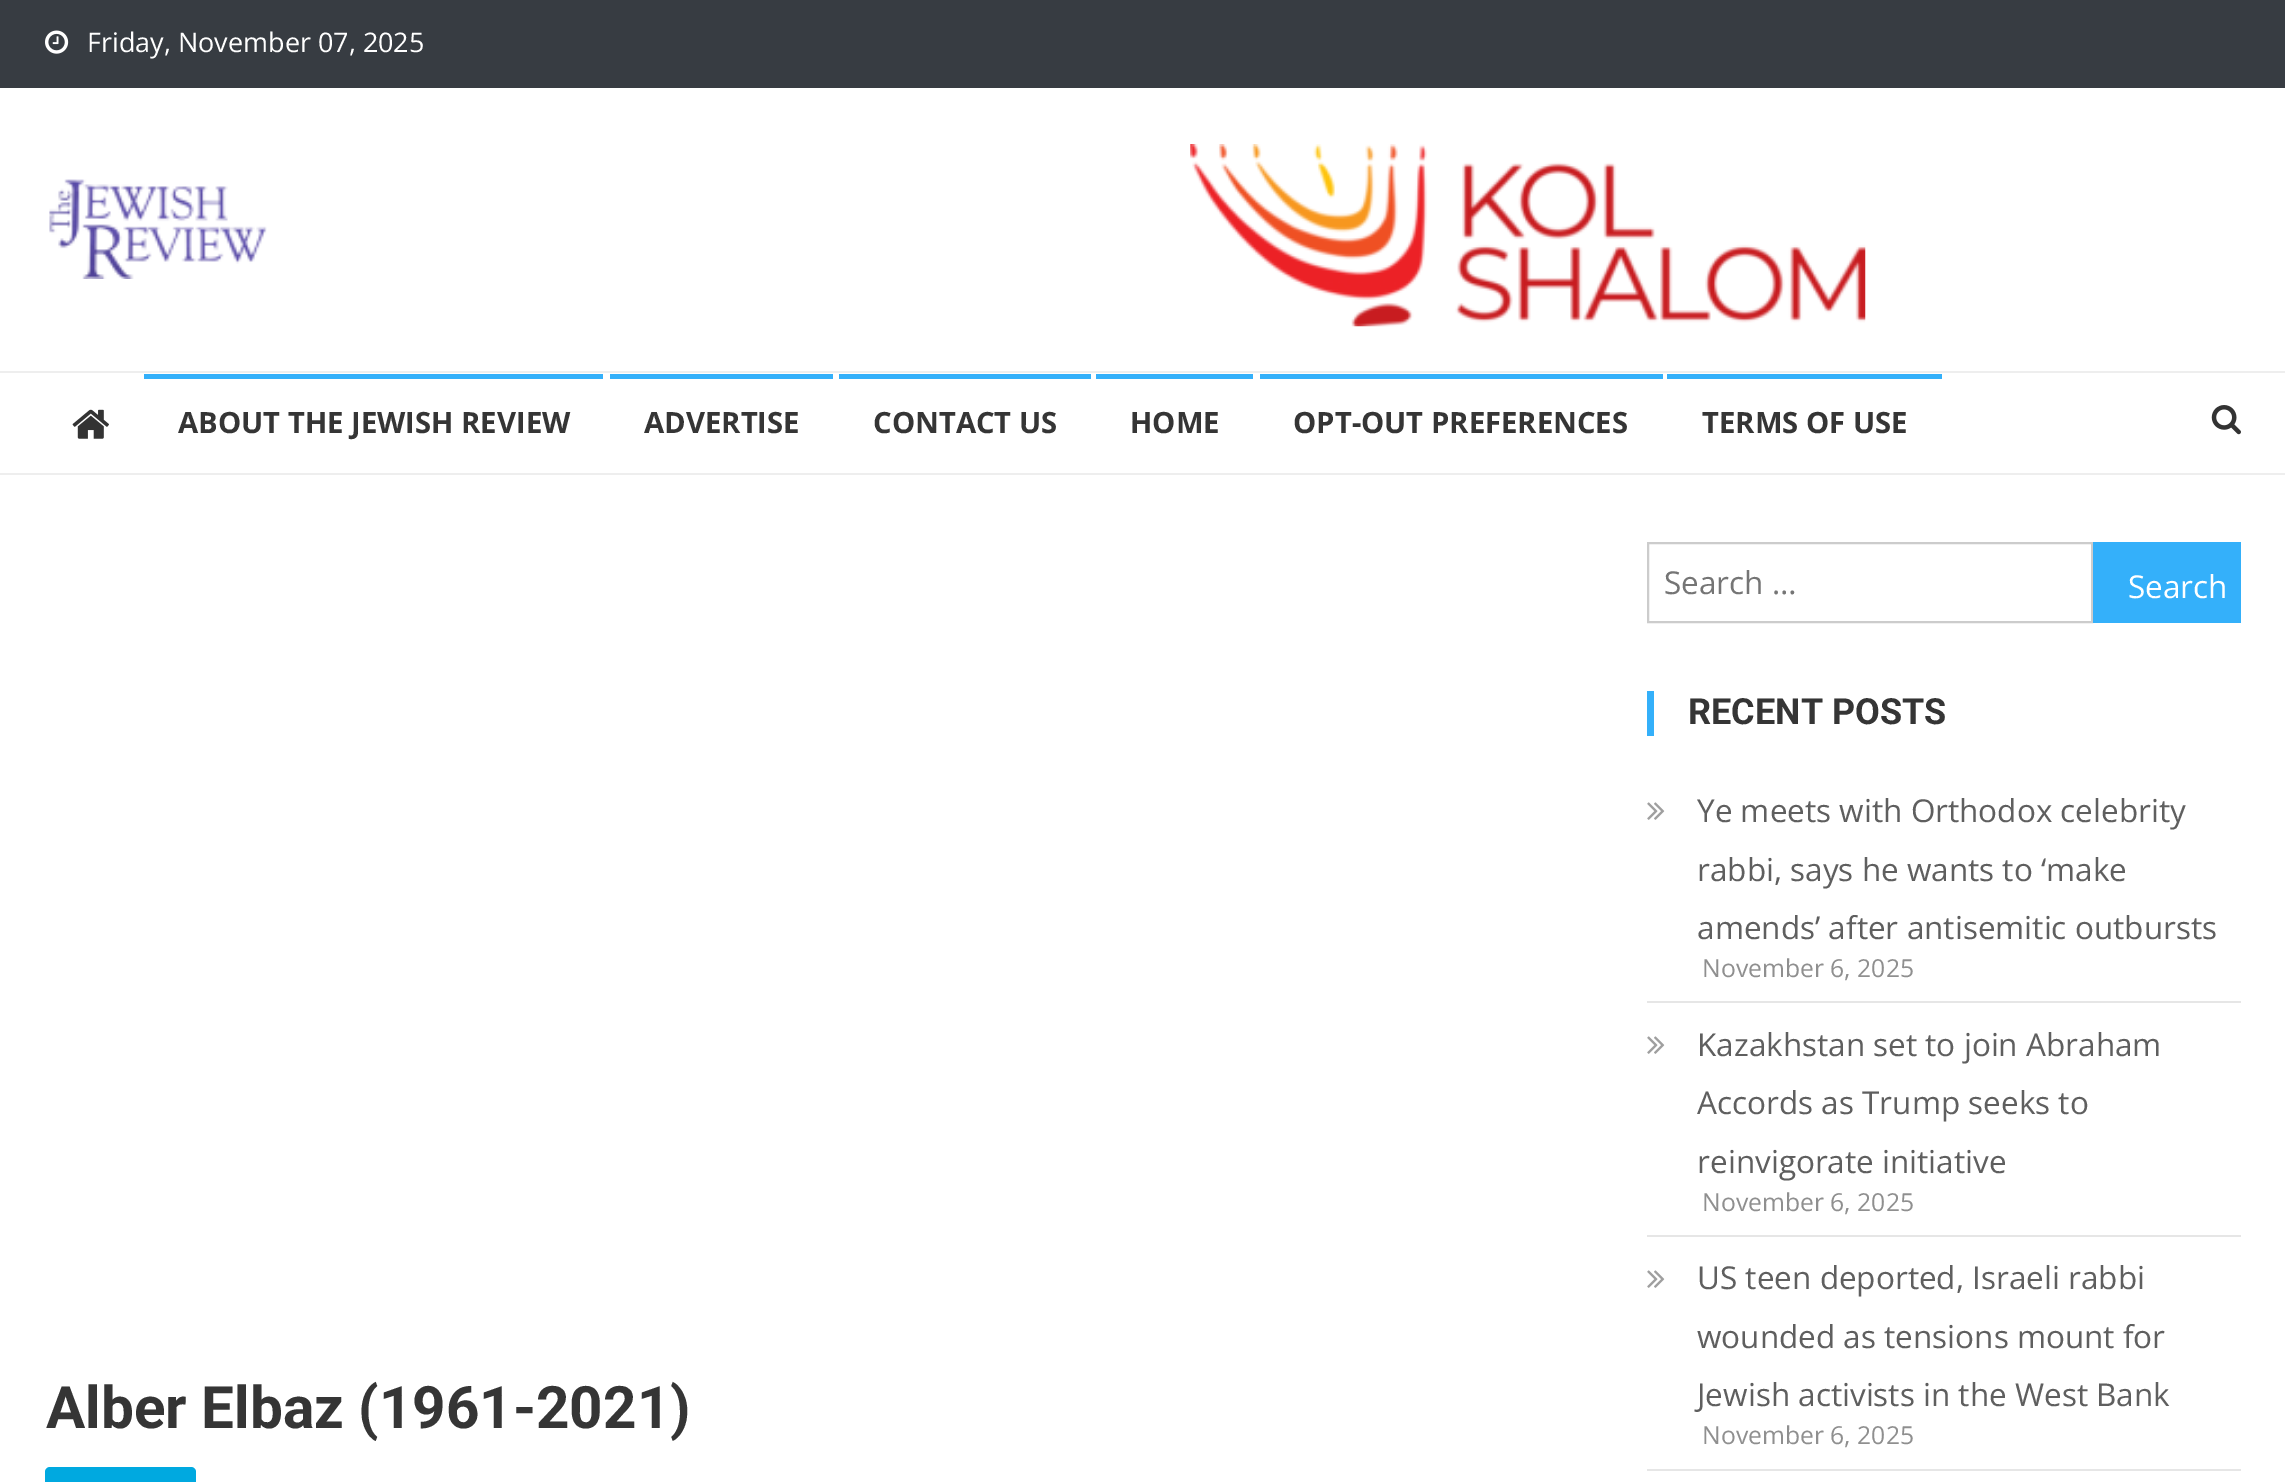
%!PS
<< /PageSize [2285 1482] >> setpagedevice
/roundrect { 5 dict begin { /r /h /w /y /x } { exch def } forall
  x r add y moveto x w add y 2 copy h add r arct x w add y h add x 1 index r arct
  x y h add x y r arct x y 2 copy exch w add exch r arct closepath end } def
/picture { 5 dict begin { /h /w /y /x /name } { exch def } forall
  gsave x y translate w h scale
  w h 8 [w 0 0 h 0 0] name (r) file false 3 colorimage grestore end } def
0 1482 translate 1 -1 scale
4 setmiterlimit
1 setgray
0 0 2285 1482 rectfill
0.216 0.235 0.259 setrgbcolor
0 0 2285 88 rectfill
(img1.rgb) 45 30 24 24 picture
/OpenSans-Regular [27 0 0 -27 0 0] selectfont
1 setgray
87 52 moveto (Friday, November 07, 2025) show
(img2.rgb) 49 179 218 100 picture
(img3.rgb) 1190 144 676 183 picture
0.933 setgray
0 371 2285 2 rectfill
0 473 2285 2 rectfill
(img4.rgb) 72 409 37 30 picture
0.204 0.69 0.98 setrgbcolor
144 374 459 5 rectfill
/OpenSans-Bold [29.25 0 0 -29.25 0 0] selectfont
0.208 setgray
178 433 moveto (ABOUT THE JEWISH REVIEW) show
0.204 0.69 0.98 setrgbcolor
610 374 223 5 rectfill
0.208 setgray
644 433 moveto (ADVERTISE) show
0.204 0.69 0.98 setrgbcolor
839 374 252 5 rectfill
0.208 setgray
873 433 moveto (CONTACT US) show
0.204 0.69 0.98 setrgbcolor
1096 374 157 5 rectfill
0.208 setgray
1130 433 moveto (HOME) show
0.204 0.69 0.98 setrgbcolor
1260 374 403 5 rectfill
0.208 setgray
1293 433 moveto (OPT-OUT PREFERENCES) show
0.204 0.69 0.98 setrgbcolor
1667 374 275 5 rectfill
0.208 setgray
1702 433 moveto (TERMS OF USE) show
(img5.rgb) 2211 405 30 30 picture
/Roboto-Bold [58.5 0 0 -58.5 0 0] selectfont
46 1428 moveto (Alber Elbaz \(1961-2021\)) show
0 0.663 0.878 setrgbcolor
45 1467 151 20 5 roundrect fill
0.8 setgray
2 setlinewidth
1648 543 444 79 rectstroke
/OpenSans-Regular [31.5 0 0 -31.5 0 0] selectfont
0.459 setgray
1664 594 moveto (Search …) show
0.204 0.69 0.98 setrgbcolor
2093 542 148 81 rectfill
1 setgray
2128 598 moveto (Search) show
0.204 0.69 0.98 setrgbcolor
1647 691 7 45 rectfill
/Roboto-Bold [36 0 0 -36 0 0] selectfont
0.208 setgray
1688 724 moveto (RECENT POSTS) show
0.902 setgray
1647 1001 594 2 rectfill
(img6.rgb) 1647 802 18 18 picture
/OpenSans-Regular [31.5 0 0 -31.5 0 0] selectfont
0.373 setgray
1697 822 moveto (Ye meets with Orthodox celebrity) show
1697 881 moveto (rabbi, says he wants to ‘make) show
1697 939 moveto (amends’ after antisemitic outbursts) show
/OpenSans-Regular [24.75 0 0 -24.75 0 0] selectfont
0.561 setgray
1702 977 moveto (November 6, 2025) show
0.902 setgray
1647 1235 594 2 rectfill
(img6.rgb) 1647 1036 18 18 picture
/OpenSans-Regular [31.5 0 0 -31.5 0 0] selectfont
0.373 setgray
1697 1056 moveto (Kazakhstan set to join Abraham) show
1697 1114 moveto (Accords as Trump seeks to) show
1697 1173 moveto (reinvigorate initiative) show
/OpenSans-Regular [24.75 0 0 -24.75 0 0] selectfont
0.561 setgray
1702 1211 moveto (November 6, 2025) show
0.902 setgray
1647 1469 594 2 rectfill
(img6.rgb) 1647 1270 18 18 picture
/OpenSans-Regular [31.5 0 0 -31.5 0 0] selectfont
0.373 setgray
1697 1289 moveto (US teen deported, Israeli rabbi) show
1697 1348 moveto (wounded as tensions mount for) show
1697 1406 moveto (Jewish activists in the West Bank) show
/OpenSans-Regular [24.75 0 0 -24.75 0 0] selectfont
0.561 setgray
1702 1444 moveto (November 6, 2025) show
showpage
